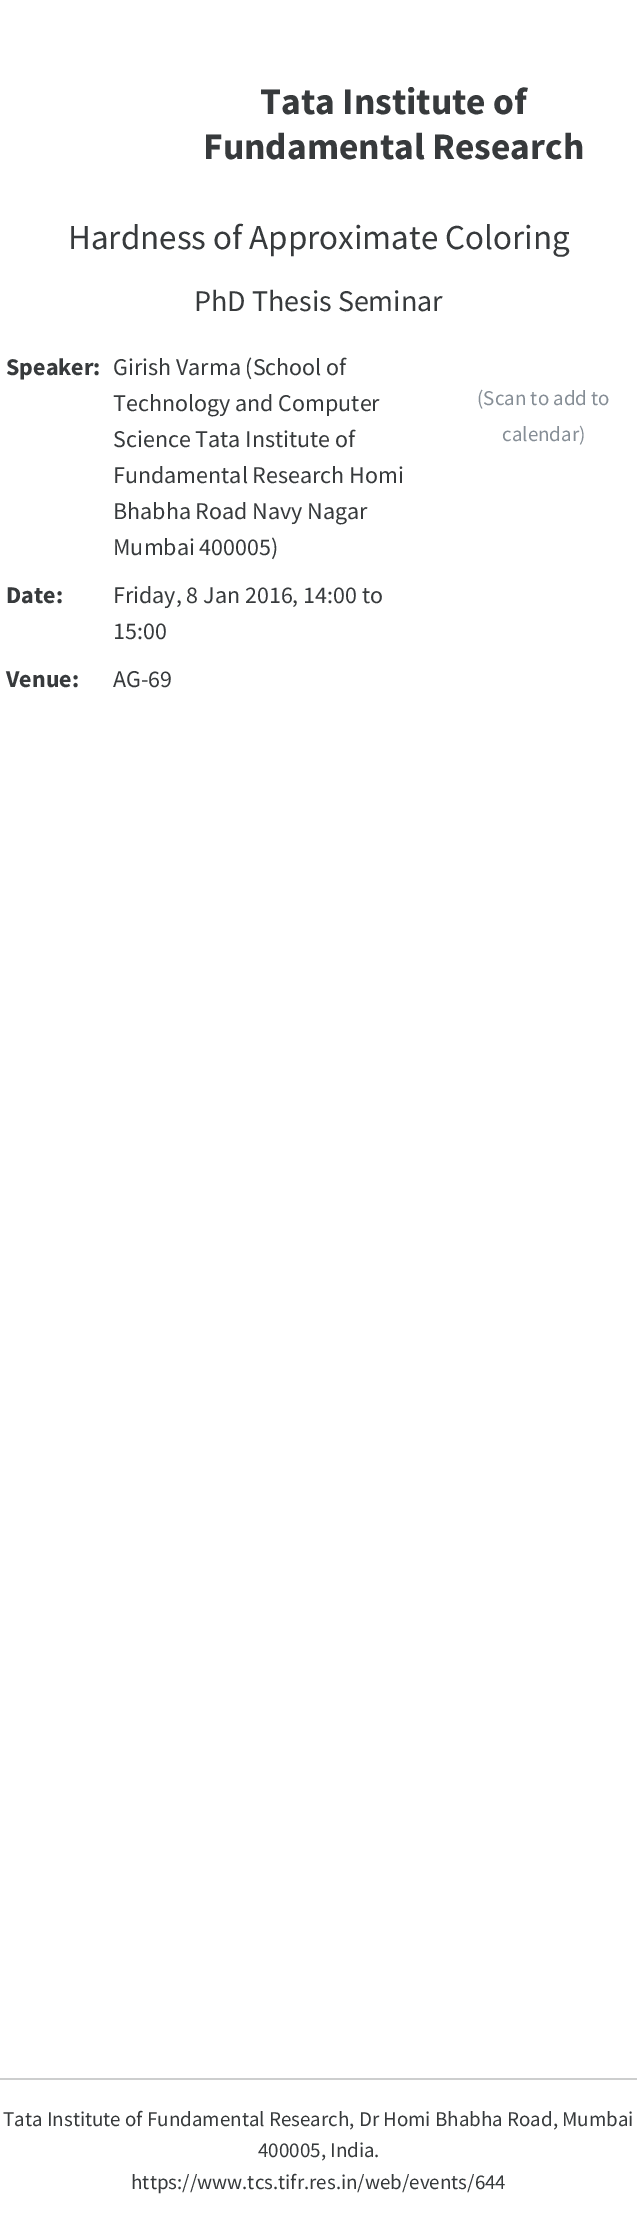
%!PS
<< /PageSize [637 2221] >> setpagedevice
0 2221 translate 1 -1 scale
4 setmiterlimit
1 setgray
0 0 637 2221 rectfill
/SourceSansPro-Bold [37.5 0 0 -37.5 0 0] selectfont
0.216 0.227 0.235 setrgbcolor
260 114 moveto (Tata Institute of) show
203 159 moveto (Fundamental Research) show
/SourceSansPro-Regular [35 0 0 -35 0 0] selectfont
68 249 moveto (Hardness of Approximate Coloring) show
/SourceSansPro-Regular [30 0 0 -30 0 0] selectfont
194 311 moveto (PhD Thesis Seminar) show
/SourceSansPro-Bold [24 0 0 -24 0 0] selectfont
6 375 moveto (Speaker:) show
/SourceSansPro-Regular [24 0 0 -24 0 0] selectfont
113 375 moveto (Girish Varma \(School of) show
113 411 moveto (Technology and Computer) show
113 447 moveto (Science Tata Institute of) show
113 483 moveto (Fundamental Research Homi) show
113 519 moveto (Bhabha Road Navy Nagar) show
113 555 moveto (Mumbai 400005\)) show
/SourceSansPro-Bold [24 0 0 -24 0 0] selectfont
6 603 moveto (Date:) show
/SourceSansPro-Regular [24 0 0 -24 0 0] selectfont
113 603 moveto (Friday, 8 Jan 2016, 14:00 to) show
113 639 moveto (15:00) show
/SourceSansPro-Bold [24 0 0 -24 0 0] selectfont
6 687 moveto (Venue:) show
/SourceSansPro-Regular [24 0 0 -24 0 0] selectfont
113 687 moveto (AG-69) show
/SourceSansPro-Regular [21 0 0 -21 0 0] selectfont
0.525 0.557 0.588 setrgbcolor
477 405 moveto (\(Scan to add to) show
502 441 moveto (calendar\)) show
0.804 0.808 0.808 setrgbcolor
0 2078 637 2 rectfill
0.216 0.227 0.235 setrgbcolor
3 2126 moveto (Tata Institute of Fundamental Research, Dr Homi Bhabha Road, Mumbai) show
258 2157 moveto (400005, India.) show
131 2189 moveto (https://www.tcs.tifr.res.in/web/events/644) show
showpage
